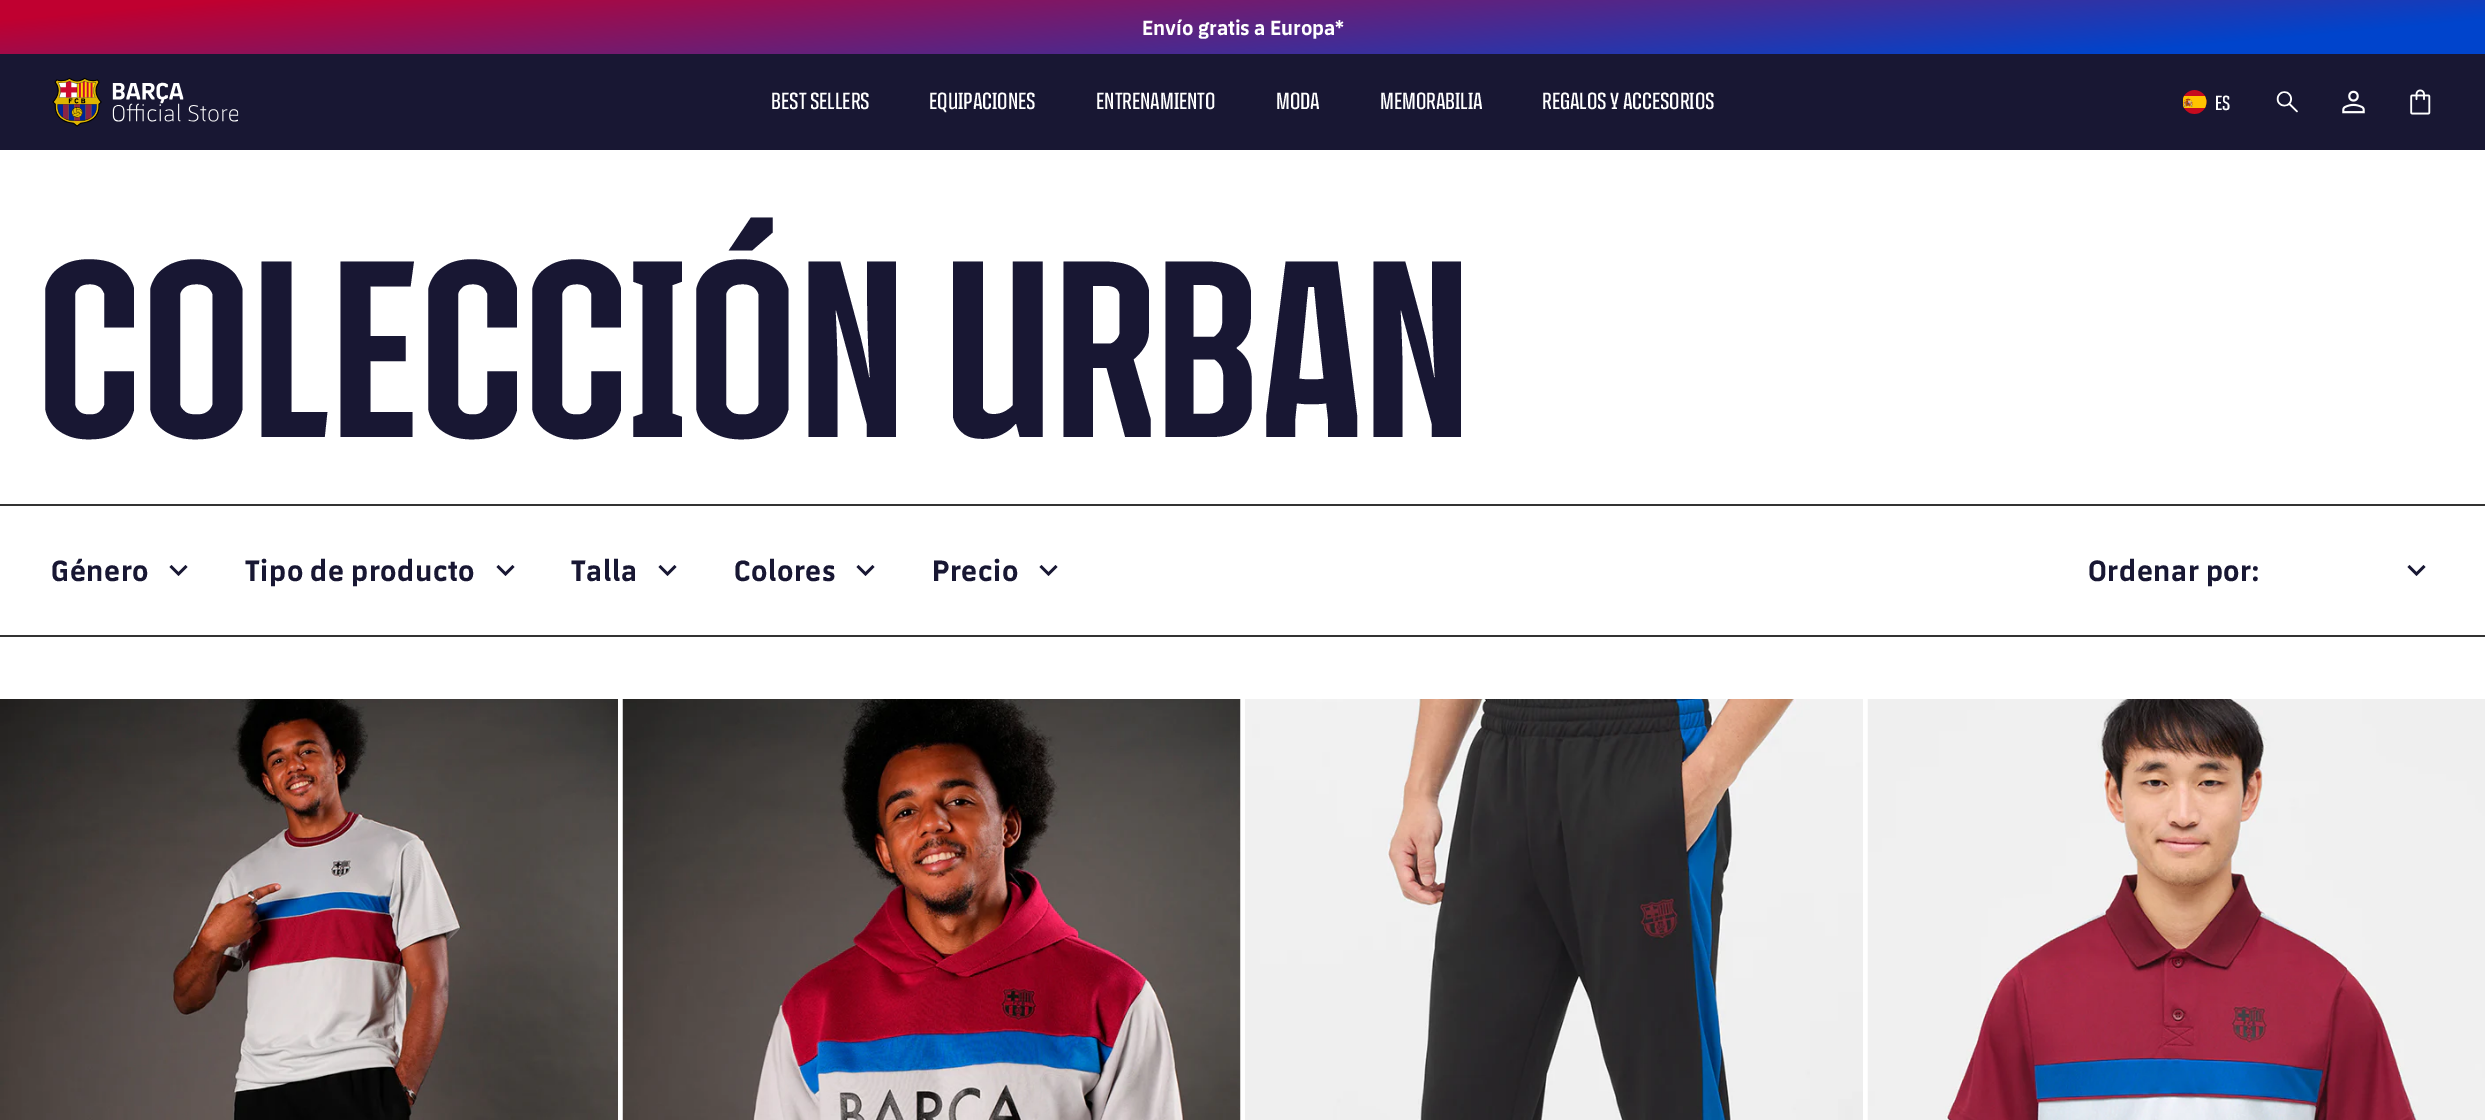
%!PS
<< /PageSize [2485 1120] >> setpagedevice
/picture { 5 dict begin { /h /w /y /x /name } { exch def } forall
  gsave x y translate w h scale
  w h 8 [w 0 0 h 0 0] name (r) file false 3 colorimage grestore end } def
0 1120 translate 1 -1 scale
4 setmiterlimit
1 setgray
0 0 2485 1120 rectfill
gsave newpath 0 0 moveto 2485 0 lineto 2485 54 lineto 0 54 lineto closepath clip newpath
<< /ShadingType 2 /ColorSpace /DeviceRGB /Coords [1231 -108 1255 162] /Extend [true true] /Function << /FunctionType 3 /Domain [0 1] /Functions [<< /FunctionType 2 /Domain [0 1] /C0 [0.753 0 0.188] /C1 [0.753 0 0.188] /N 1 >> << /FunctionType 2 /Domain [0 1] /C0 [0.753 0 0.188] /C1 [0 0.267 0.8] /N 1 >> << /FunctionType 2 /Domain [0 1] /C0 [0 0.267 0.8] /C1 [0 0.267 0.8] /N 1 >>] /Bounds [0.07 0.88] /Encode [0 1 0 1 0 1] >> >> shfill grestore
/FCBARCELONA-Bold [21 0 0 -21 0 0] selectfont
1142 35 moveto (Envío gratis a Europa*) show
0.094 0.09 0.2 setrgbcolor
0 54 2485 96 rectfill
(img1.rgb) 52 77 187 50 picture
/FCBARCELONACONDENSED-SemiBold [24 0 0 -24 0 0] selectfont
1 setgray
771 109 moveto (BEST SELLERS) show
929 109 moveto (EQUIPACIONES) show
1096 109 moveto (ENTRENAMIENTO) show
1276 109 moveto (MODA) show
1380 109 moveto (MEMORABILIA) show
1542 109 moveto (REGALOS Y ACCESORIOS) show
(img2.rgb) 2183 90 24 24 picture
/FCBARCELONACONDENSED-SemiBold [21 0 0 -21 0 0] selectfont
2215 110 moveto (ES) show
(img3.rgb) 2276 91 22 22 picture
(img4.rgb) 2342 90 23 24 picture
(img5.rgb) 2410 89 21 26 picture
/FCBARCELONACONDENSED-Bold [258 0 0 -258 0 0] selectfont
0.094 0.09 0.2 setrgbcolor
36 437 moveto (COLECCIÓN URBAN) show
0.2 setgray
0 504 2485 2 rectfill
0 635 2485 2 rectfill
/FCBARCELONA-Bold [30 0 0 -30 0 0] selectfont
0.094 0.09 0.2 setrgbcolor
51 581 moveto 0.6 0 (Género) ashow
newpath 171.5 565 moveto 178.5 572 lineto 185.5 565 lineto 187.5 567 lineto 178.5 576 lineto 169.5 567 lineto closepath fill
245 581 moveto 0.6 0 (Tipo de producto) ashow
newpath 498.5 565 moveto 505.5 572 lineto 512.5 565 lineto 514.5 567 lineto 505.5 576 lineto 496.5 567 lineto closepath fill
571 581 moveto 0.6 0 (Talla) ashow
newpath 660.5 565 moveto 667.5 572 lineto 674.5 565 lineto 676.5 567 lineto 667.5 576 lineto 658.5 567 lineto closepath fill
734 581 moveto 0.6 0 (Colores) ashow
newpath 858.5 565 moveto 865.5 572 lineto 872.5 565 lineto 874.5 567 lineto 865.5 576 lineto 856.5 567 lineto closepath fill
932 581 moveto 0.6 0 (Precio) ashow
newpath 1041.5 565 moveto 1048.5 572 lineto 1055.5 565 lineto 1057.5 567 lineto 1048.5 576 lineto 1039.5 567 lineto closepath fill
2088 581 moveto 0.6 0 (Ordenar por:) ashow
newpath 2409.5 565 moveto 2416.5 572 lineto 2423.5 565 lineto 2425.5 567 lineto 2416.5 576 lineto 2407.5 567 lineto closepath fill
(img6.rgb) 0 699 618 421 picture
(img7.rgb) 622 699 619 421 picture
(img8.rgb) 1245 699 618 421 picture
(img9.rgb) 1867 699 618 421 picture
showpage
